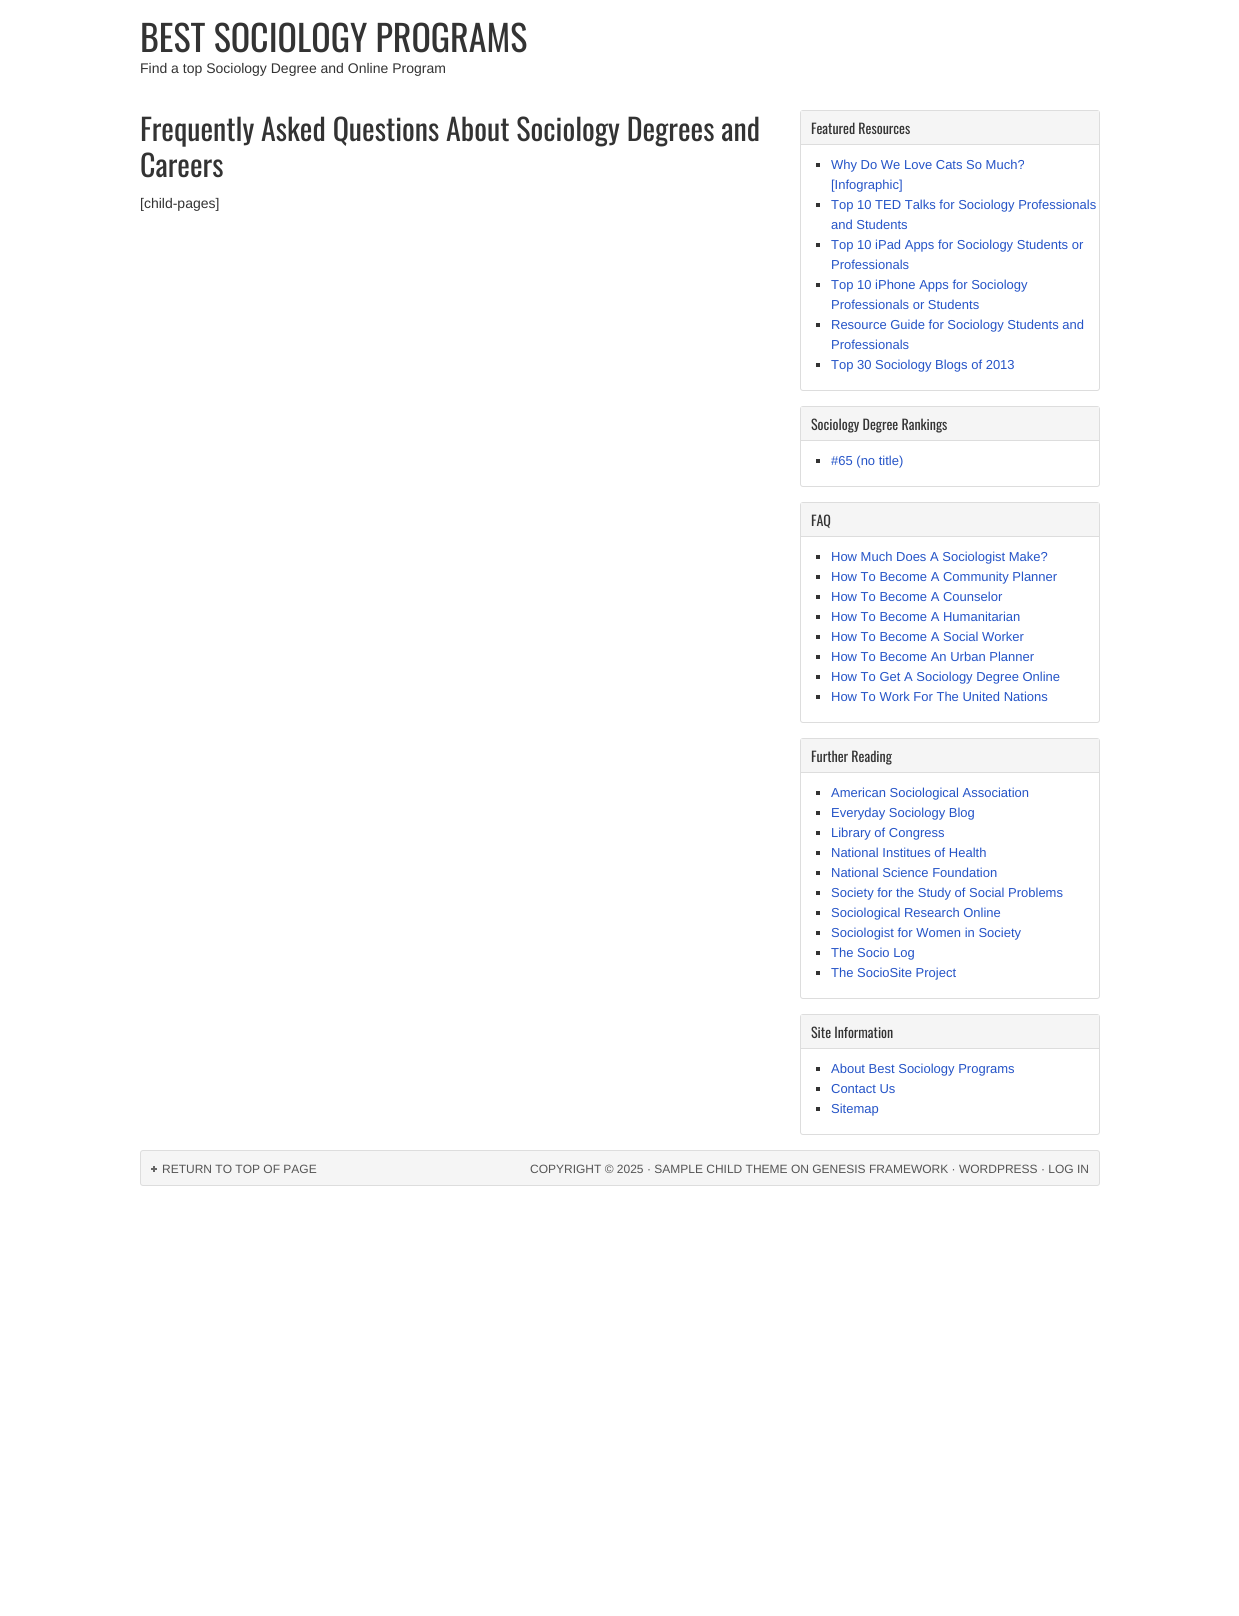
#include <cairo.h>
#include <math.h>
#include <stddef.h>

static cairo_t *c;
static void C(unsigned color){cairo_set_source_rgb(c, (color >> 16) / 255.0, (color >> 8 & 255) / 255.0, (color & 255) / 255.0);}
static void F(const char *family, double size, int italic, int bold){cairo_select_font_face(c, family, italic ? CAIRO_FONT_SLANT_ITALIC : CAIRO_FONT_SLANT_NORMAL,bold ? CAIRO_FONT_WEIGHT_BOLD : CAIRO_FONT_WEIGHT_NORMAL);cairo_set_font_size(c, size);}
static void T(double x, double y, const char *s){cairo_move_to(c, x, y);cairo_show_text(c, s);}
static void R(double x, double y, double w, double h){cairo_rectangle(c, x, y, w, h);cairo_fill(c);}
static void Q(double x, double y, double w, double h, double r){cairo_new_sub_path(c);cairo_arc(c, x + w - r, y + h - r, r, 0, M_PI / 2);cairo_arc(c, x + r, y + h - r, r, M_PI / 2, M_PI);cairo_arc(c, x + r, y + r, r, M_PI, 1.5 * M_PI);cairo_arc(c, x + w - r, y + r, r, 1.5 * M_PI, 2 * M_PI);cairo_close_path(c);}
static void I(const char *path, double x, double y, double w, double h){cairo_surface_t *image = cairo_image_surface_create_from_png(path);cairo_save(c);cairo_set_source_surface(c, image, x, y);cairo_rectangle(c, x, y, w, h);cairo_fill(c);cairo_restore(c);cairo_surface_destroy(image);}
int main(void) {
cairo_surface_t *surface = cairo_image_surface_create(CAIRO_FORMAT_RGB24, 1239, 1616);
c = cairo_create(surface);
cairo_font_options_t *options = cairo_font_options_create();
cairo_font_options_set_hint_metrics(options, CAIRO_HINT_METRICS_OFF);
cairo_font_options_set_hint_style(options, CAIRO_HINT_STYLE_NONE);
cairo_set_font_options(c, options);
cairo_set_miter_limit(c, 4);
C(0xffffff);
cairo_paint(c);
F("Oswald",36,0,0);
C(0x333333);
T(140,52,"BEST SOCIOLOGY PROGRAMS");
F("Liberation Sans",14,0,0);
T(140,73,"Find a top Sociology Degree and Online Program");
F("Oswald",30,0,0);
T(140,141,"Frequently Asked Questions About Sociology Degrees and");
T(140,177,"Careers");
F("Liberation Sans",14,0,0);
T(140,208,"[child-pages]");
Q(800.5,110.5,299,280,2.5);
C(0xdddddd);
cairo_set_line_width(c,1);
cairo_stroke(c);
C(0xf5f5f5);
R(801,111,298,33);
C(0xdddddd);
R(801,144,298,1);
F("Oswald",14,0,0);
C(0x333333);
T(811,134,"Featured Resources");
R(816,163,4,4);
F("Liberation Sans",13,0,0);
C(0x2554c7);
T(831,169,"Why Do We Love Cats So Much?");
T(831,189,"[Infographic]");
C(0x333333);
R(816,203,4,4);
C(0x2554c7);
T(831,209,"Top 10 TED Talks for Sociology Professionals");
T(831,229,"and Students");
C(0x333333);
R(816,243,4,4);
C(0x2554c7);
T(831,249,"Top 10 iPad Apps for Sociology Students or");
T(831,269,"Professionals");
C(0x333333);
R(816,283,4,4);
C(0x2554c7);
T(831,289,"Top 10 iPhone Apps for Sociology");
T(831,309,"Professionals or Students");
C(0x333333);
R(816,323,4,4);
C(0x2554c7);
T(831,329,"Resource Guide for Sociology Students and");
T(831,349,"Professionals");
C(0x333333);
R(816,363,4,4);
C(0x2554c7);
T(831,369,"Top 30 Sociology Blogs of 2013");
Q(800.5,406.5,299,80,2.5);
C(0xdddddd);
cairo_stroke(c);
C(0xf5f5f5);
R(801,407,298,33);
C(0xdddddd);
R(801,440,298,1);
F("Oswald",14,0,0);
C(0x333333);
T(811,430,"Sociology Degree Rankings");
R(816,459,4,4);
F("Liberation Sans",13,0,0);
C(0x2554c7);
T(831,465,"#65 (no title)");
Q(800.5,502.5,299,220,2.5);
C(0xdddddd);
cairo_stroke(c);
C(0xf5f5f5);
R(801,503,298,33);
C(0xdddddd);
R(801,536,298,1);
F("Oswald",14,0,0);
C(0x333333);
T(811,526,"FAQ");
R(816,555,4,4);
F("Liberation Sans",13,0,0);
C(0x2554c7);
T(831,561,"How Much Does A Sociologist Make?");
C(0x333333);
R(816,575,4,4);
C(0x2554c7);
T(831,581,"How To Become A Community Planner");
C(0x333333);
R(816,595,4,4);
C(0x2554c7);
T(831,601,"How To Become A Counselor");
C(0x333333);
R(816,615,4,4);
C(0x2554c7);
T(831,621,"How To Become A Humanitarian");
C(0x333333);
R(816,635,4,4);
C(0x2554c7);
T(831,641,"How To Become A Social Worker");
C(0x333333);
R(816,655,4,4);
C(0x2554c7);
T(831,661,"How To Become An Urban Planner");
C(0x333333);
R(816,675,4,4);
C(0x2554c7);
T(831,681,"How To Get A Sociology Degree Online");
C(0x333333);
R(816,695,4,4);
C(0x2554c7);
T(831,701,"How To Work For The United Nations");
Q(800.5,738.5,299,260,2.5);
C(0xdddddd);
cairo_stroke(c);
C(0xf5f5f5);
R(801,739,298,33);
C(0xdddddd);
R(801,772,298,1);
F("Oswald",14,0,0);
C(0x333333);
T(811,762,"Further Reading");
R(816,791,4,4);
F("Liberation Sans",13,0,0);
C(0x2554c7);
T(831,797,"American Sociological Association");
C(0x333333);
R(816,811,4,4);
C(0x2554c7);
T(831,817,"Everyday Sociology Blog");
C(0x333333);
R(816,831,4,4);
C(0x2554c7);
T(831,837,"Library of Congress");
C(0x333333);
R(816,851,4,4);
C(0x2554c7);
T(831,857,"National Institues of Health");
C(0x333333);
R(816,871,4,4);
C(0x2554c7);
T(831,877,"National Science Foundation");
C(0x333333);
R(816,891,4,4);
C(0x2554c7);
T(831,897,"Society for the Study of Social Problems");
C(0x333333);
R(816,911,4,4);
C(0x2554c7);
T(831,917,"Sociological Research Online");
C(0x333333);
R(816,931,4,4);
C(0x2554c7);
T(831,937,"Sociologist for Women in Society");
C(0x333333);
R(816,951,4,4);
C(0x2554c7);
T(831,957,"The Socio Log");
C(0x333333);
R(816,971,4,4);
C(0x2554c7);
T(831,977,"The SocioSite Project");
Q(800.5,1014.5,299,120,2.5);
C(0xdddddd);
cairo_stroke(c);
C(0xf5f5f5);
R(801,1015,298,33);
C(0xdddddd);
R(801,1048,298,1);
F("Oswald",14,0,0);
C(0x333333);
T(811,1038,"Site Information");
R(816,1067,4,4);
F("Liberation Sans",13,0,0);
C(0x2554c7);
T(831,1073,"About Best Sociology Programs");
C(0x333333);
R(816,1087,4,4);
C(0x2554c7);
T(831,1093,"Contact Us");
C(0x333333);
R(816,1107,4,4);
C(0x2554c7);
T(831,1113,"Sitemap");
C(0xf5f5f5);
Q(140.5,1150.5,959,35,2.5);
cairo_fill_preserve(c);
C(0xdddddd);
cairo_stroke(c);
I("1.png",151,1166,6,6);
F("Liberation Sans",12,0,0);
C(0x555555);
T(162,1173,"RETURN TO TOP OF PAGE");
T(530,1173,"COPYRIGHT © 2025 · SAMPLE CHILD THEME ON GENESIS FRAMEWORK · WORDPRESS · LOG IN");
cairo_surface_write_to_png(surface, "o.png");
cairo_font_options_destroy(options);
cairo_destroy(c);
cairo_surface_destroy(surface);
return 0;
}
